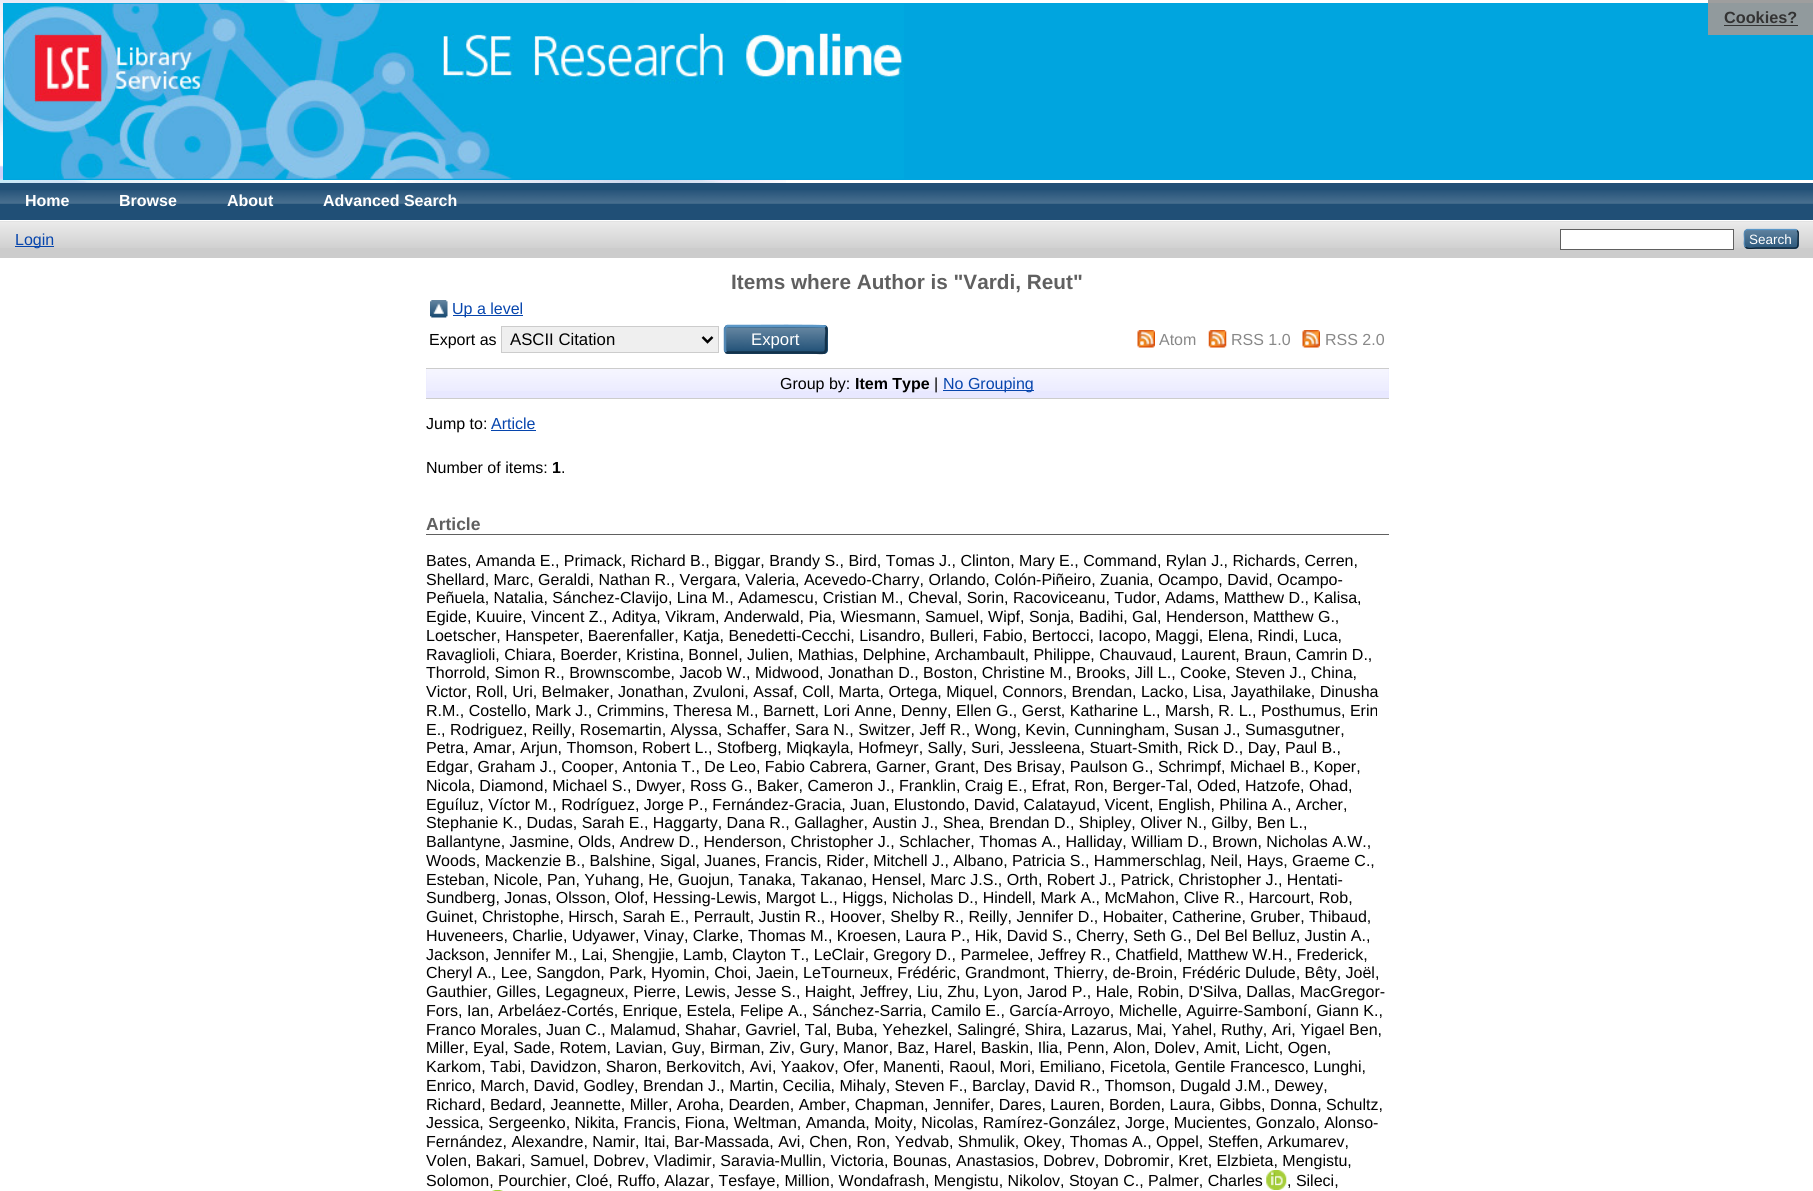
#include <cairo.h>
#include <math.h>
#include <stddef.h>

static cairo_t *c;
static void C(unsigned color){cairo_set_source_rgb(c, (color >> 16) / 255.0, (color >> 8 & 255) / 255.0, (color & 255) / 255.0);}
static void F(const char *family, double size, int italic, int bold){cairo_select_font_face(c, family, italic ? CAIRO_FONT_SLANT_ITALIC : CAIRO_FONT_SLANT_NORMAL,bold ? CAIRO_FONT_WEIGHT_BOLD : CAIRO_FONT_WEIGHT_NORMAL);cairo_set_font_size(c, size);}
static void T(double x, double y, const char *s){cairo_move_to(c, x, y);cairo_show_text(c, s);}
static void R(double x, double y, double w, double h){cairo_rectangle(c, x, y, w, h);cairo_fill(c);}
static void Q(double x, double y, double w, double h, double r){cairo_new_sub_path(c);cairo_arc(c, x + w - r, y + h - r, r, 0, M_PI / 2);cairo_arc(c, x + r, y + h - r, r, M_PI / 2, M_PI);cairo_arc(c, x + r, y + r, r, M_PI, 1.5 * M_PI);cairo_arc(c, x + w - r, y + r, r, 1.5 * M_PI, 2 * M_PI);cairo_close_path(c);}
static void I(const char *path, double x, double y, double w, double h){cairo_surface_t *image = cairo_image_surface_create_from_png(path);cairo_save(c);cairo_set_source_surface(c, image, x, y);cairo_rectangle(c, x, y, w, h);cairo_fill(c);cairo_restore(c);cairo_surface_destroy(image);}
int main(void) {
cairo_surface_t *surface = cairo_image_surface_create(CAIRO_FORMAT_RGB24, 1813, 1191);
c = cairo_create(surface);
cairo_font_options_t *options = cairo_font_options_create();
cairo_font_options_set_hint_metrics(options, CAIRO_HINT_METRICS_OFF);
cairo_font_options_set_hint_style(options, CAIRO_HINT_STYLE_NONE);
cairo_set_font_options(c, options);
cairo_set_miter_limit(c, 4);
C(0xffffff);
cairo_paint(c);
C(0x9e9e9e);
R(1708,0,105,3);
I("1.png",0,0,786,183);
C(0x00a5df);
R(3,3,1810,177);
C(0x919a9d);
R(1708,3,105,32);
I("2.png",3,3,901,176);
F("Liberation Sans",16.25,0,1);
C(0x333333);
T(1724,23,"Cookies?");
R(1724,25,74,1);
C(0x204f76);
R(0,183,1813,37);
I("3.png",0,190,1813,14);
F("Liberation Sans",16,0,1);
C(0xffffff);
T(25,206,"Home");
T(119,206,"Browse");
T(227,206,"About");
T(323,206,"Advanced Search");
C(0xcccccc);
R(0,221,1813,37);
I("4.png",0,221,1813,27);
C(0x0645ad);
R(15,246,39,1);
F("Liberation Sans",16,0,0);
T(15,245,"Login");
C(0xffffff);
cairo_rectangle(c,1560.5,229.5,173,20);
cairo_fill_preserve(c);
C(0x606060);
cairo_set_line_width(c,1);
cairo_stroke(c);
C(0x1f4f76);
Q(1744,229,55,20,4);
cairo_fill(c);
I("5.png",1744,229,55,20);
cairo_new_path(c);
cairo_move_to(c,1745.5,230.5);
cairo_line_to(c,1747,229.5);
cairo_line_to(c,1795.5,229.5);
cairo_line_to(c,1797,230.5);
C(0x5b97c7);
cairo_set_line_width(c,1.2);
cairo_stroke(c);
cairo_new_path(c);
cairo_move_to(c,1797,230.5);
cairo_curve_to(c,1799,232.5,1798,236.5,1798,239);
cairo_curve_to(c,1798,249.5,1798.5,248,1787,248);
cairo_line_to(c,1755.5,248);
cairo_curve_to(c,1755,248,1747.5,249.5,1745.5,247);
C(0x0d2131);
cairo_stroke(c);
cairo_new_path(c);
cairo_move_to(c,1745.5,247);
cairo_curve_to(c,1743.5,245.5,1744.5,241,1744.5,239);
cairo_curve_to(c,1744.5,236.5,1743.5,232,1745.5,230.5);
C(0x5287b3);
cairo_stroke(c);
F("Liberation Sans",13.5,0,0);
C(0xffffff);
T(1749,244,"Search");
F("Liberation Sans",20.75,0,1);
C(0x606060);
T(731,289,"Items where Author is \"Vardi, Reut\"");
I("6.png",430,300,18,18);
C(0x0645ad);
R(453,315,70,1);
F("Liberation Sans",16,0,0);
T(452,314,"Up a level");
C(0x000000);
T(429,345,"Export as");
C(0xefefef);
cairo_rectangle(c,501.5,326.5,217,26);
cairo_fill_preserve(c);
C(0xcccccc);
cairo_set_line_width(c,1);
cairo_stroke(c);
cairo_new_path(c);
cairo_move_to(c,702.5,337);
cairo_line_to(c,707.5,342);
cairo_line_to(c,712.5,337);
C(0x000000);
cairo_set_line_width(c,2.5);
cairo_stroke(c);
F("Liberation Sans",16.75,0,0);
T(510,345,"ASCII Citation");
C(0x1f4f76);
Q(724,325,104,29,4);
cairo_fill(c);
I("7.png",724,327,104,24);
cairo_new_path(c);
cairo_move_to(c,725.5,327);
cairo_line_to(c,727.5,326);
cairo_line_to(c,743.5,326);
cairo_curve_to(c,752,326,823,325.5,825,326.5);
cairo_line_to(c,825.5,327);
C(0x5b97c7);
cairo_stroke(c);
cairo_new_path(c);
cairo_move_to(c,825.5,327);
cairo_curve_to(c,827.5,329,826,337,826,339.5);
cairo_curve_to(c,826,356.5,828,352.5,807.5,352.5);
cairo_line_to(c,727.5,352.5);
cairo_line_to(c,725.5,352);
C(0x13324a);
cairo_stroke(c);
cairo_new_path(c);
cairo_move_to(c,725.5,352);
cairo_curve_to(c,725.5,351.5,725,350.5,725,350);
cairo_line_to(c,725,329);
cairo_curve_to(c,725,328,725.5,327.5,725.5,327);
C(0x5287b3);
cairo_stroke(c);
C(0xffffff);
T(751,345,"Export");
I("8.png",1137,330,18,18);
F("Liberation Sans",16,0,0);
C(0x888888);
T(1159,345,"Atom");
I("9.png",1208,330,19,18);
T(1231,345,"RSS 1.0");
I("10.png",1302,330,18,18);
T(1325,345,"RSS 2.0");
C(0xe8e8ff);
R(426,369,963,29);
I("11.png",426,369,963,22);
C(0xcccccc);
R(426,368,963,1);
R(426,398,963,1);
C(0x000000);
T(780,389,"Group by:");
F("Liberation Sans",16,0,1);
T(855,389,"Item Type");
F("Liberation Sans",16,0,0);
T(934,389,"|");
C(0x0645ad);
R(943,390,91,1);
T(943,389,"No Grouping");
C(0x000000);
T(426,429,"Jump to:");
C(0x0645ad);
T(491,429,"Article");
R(491,430,45,1);
C(0x000000);
T(426,473,"Number of items:");
F("Liberation Sans",16,0,1);
T(552,473,"1");
F("Liberation Sans",16,0,0);
T(561,473,".");
C(0x606060);
R(426,534,963,1);
F("Liberation Sans",17.5,0,1);
T(426,530,"Article");
F("Liberation Sans",16,0,0);
C(0x000000);
T(426,566,"Bates, Amanda E., Primack, Richard B., Biggar, Brandy S., Bird, Tomas J., Clinton, Mary E., Command, Rylan J., Richards, Cerren,");
T(426,585,"Shellard, Marc, Geraldi, Nathan R., Vergara, Valeria, Acevedo-Charry, Orlando, Colón-Piñeiro, Zuania, Ocampo, David, Ocampo-");
T(426,603,"Peñuela, Natalia, Sánchez-Clavijo, Lina M., Adamescu, Cristian M., Cheval, Sorin, Racoviceanu, Tudor, Adams, Matthew D., Kalisa,");
T(426,622,"Egide, Kuuire, Vincent Z., Aditya, Vikram, Anderwald, Pia, Wiesmann, Samuel, Wipf, Sonja, Badihi, Gal, Henderson, Matthew G.,");
T(426,641,"Loetscher, Hanspeter, Baerenfaller, Katja, Benedetti-Cecchi, Lisandro, Bulleri, Fabio, Bertocci, Iacopo, Maggi, Elena, Rindi, Luca,");
T(426,660,"Ravaglioli, Chiara, Boerder, Kristina, Bonnel, Julien, Mathias, Delphine, Archambault, Philippe, Chauvaud, Laurent, Braun, Camrin D.,");
T(426,678,"Thorrold, Simon R., Brownscombe, Jacob W., Midwood, Jonathan D., Boston, Christine M., Brooks, Jill L., Cooke, Steven J., China,");
T(426,697,"Victor, Roll, Uri, Belmaker, Jonathan, Zvuloni, Assaf, Coll, Marta, Ortega, Miquel, Connors, Brendan, Lacko, Lisa, Jayathilake, Dinusha");
T(426,716,"R.M., Costello, Mark J., Crimmins, Theresa M., Barnett, Lori Anne, Denny, Ellen G., Gerst, Katharine L., Marsh, R. L., Posthumus, Erin");
T(426,735,"E., Rodriguez, Reilly, Rosemartin, Alyssa, Schaffer, Sara N., Switzer, Jeff R., Wong, Kevin, Cunningham, Susan J., Sumasgutner,");
T(426,753,"Petra, Amar, Arjun, Thomson, Robert L., Stofberg, Miqkayla, Hofmeyr, Sally, Suri, Jessleena, Stuart-Smith, Rick D., Day, Paul B.,");
T(426,772,"Edgar, Graham J., Cooper, Antonia T., De Leo, Fabio Cabrera, Garner, Grant, Des Brisay, Paulson G., Schrimpf, Michael B., Koper,");
T(426,791,"Nicola, Diamond, Michael S., Dwyer, Ross G., Baker, Cameron J., Franklin, Craig E., Efrat, Ron, Berger-Tal, Oded, Hatzofe, Ohad,");
T(426,810,"Eguíluz, Víctor M., Rodríguez, Jorge P., Fernández-Gracia, Juan, Elustondo, David, Calatayud, Vicent, English, Philina A., Archer,");
T(426,828,"Stephanie K., Dudas, Sarah E., Haggarty, Dana R., Gallagher, Austin J., Shea, Brendan D., Shipley, Oliver N., Gilby, Ben L.,");
T(426,847,"Ballantyne, Jasmine, Olds, Andrew D., Henderson, Christopher J., Schlacher, Thomas A., Halliday, William D., Brown, Nicholas A.W.,");
T(426,866,"Woods, Mackenzie B., Balshine, Sigal, Juanes, Francis, Rider, Mitchell J., Albano, Patricia S., Hammerschlag, Neil, Hays, Graeme C.,");
T(426,885,"Esteban, Nicole, Pan, Yuhang, He, Guojun, Tanaka, Takanao, Hensel, Marc J.S., Orth, Robert J., Patrick, Christopher J., Hentati-");
T(426,903,"Sundberg, Jonas, Olsson, Olof, Hessing-Lewis, Margot L., Higgs, Nicholas D., Hindell, Mark A., McMahon, Clive R., Harcourt, Rob,");
T(426,922,"Guinet, Christophe, Hirsch, Sarah E., Perrault, Justin R., Hoover, Shelby R., Reilly, Jennifer D., Hobaiter, Catherine, Gruber, Thibaud,");
T(426,941,"Huveneers, Charlie, Udyawer, Vinay, Clarke, Thomas M., Kroesen, Laura P., Hik, David S., Cherry, Seth G., Del Bel Belluz, Justin A.,");
T(426,960,"Jackson, Jennifer M., Lai, Shengjie, Lamb, Clayton T., LeClair, Gregory D., Parmelee, Jeffrey R., Chatfield, Matthew W.H., Frederick,");
T(426,978,"Cheryl A., Lee, Sangdon, Park, Hyomin, Choi, Jaein, LeTourneux, Frédéric, Grandmont, Thierry, de-Broin, Frédéric Dulude, Bêty, Joël,");
T(426,997,"Gauthier, Gilles, Legagneux, Pierre, Lewis, Jesse S., Haight, Jeffrey, Liu, Zhu, Lyon, Jarod P., Hale, Robin, D'Silva, Dallas, MacGregor-");
T(426,1016,"Fors, Ian, Arbeláez-Cortés, Enrique, Estela, Felipe A., Sánchez-Sarria, Camilo E., García-Arroyo, Michelle, Aguirre-Samboní, Giann K.,");
T(426,1035,"Franco Morales, Juan C., Malamud, Shahar, Gavriel, Tal, Buba, Yehezkel, Salingré, Shira, Lazarus, Mai, Yahel, Ruthy, Ari, Yigael Ben,");
T(426,1053,"Miller, Eyal, Sade, Rotem, Lavian, Guy, Birman, Ziv, Gury, Manor, Baz, Harel, Baskin, Ilia, Penn, Alon, Dolev, Amit, Licht, Ogen,");
T(426,1072,"Karkom, Tabi, Davidzon, Sharon, Berkovitch, Avi, Yaakov, Ofer, Manenti, Raoul, Mori, Emiliano, Ficetola, Gentile Francesco, Lunghi,");
T(426,1091,"Enrico, March, David, Godley, Brendan J., Martin, Cecilia, Mihaly, Steven F., Barclay, David R., Thomson, Dugald J.M., Dewey,");
T(426,1110,"Richard, Bedard, Jeannette, Miller, Aroha, Dearden, Amber, Chapman, Jennifer, Dares, Lauren, Borden, Laura, Gibbs, Donna, Schultz,");
T(426,1128,"Jessica, Sergeenko, Nikita, Francis, Fiona, Weltman, Amanda, Moity, Nicolas, Ramírez-González, Jorge, Mucientes, Gonzalo, Alonso-");
T(426,1147,"Fernández, Alexandre, Namir, Itai, Bar-Massada, Avi, Chen, Ron, Yedvab, Shmulik, Okey, Thomas A., Oppel, Steffen, Arkumarev,");
T(426,1166,"Volen, Bakari, Samuel, Dobrev, Vladimir, Saravia-Mullin, Victoria, Bounas, Anastasios, Dobrev, Dobromir, Kret, Elzbieta, Mengistu,");
T(426,1186,"Solomon, Pourchier, Cloé, Ruffo, Alazar, Tesfaye, Million, Wondafrash, Mengistu, Nikolov, Stoyan C., Palmer, Charles");
I("12.png",1266,1170,21,20);
T(1287,1186,", Sileci,");
I("13.png",492,1190,11,1);
cairo_surface_write_to_png(surface, "o.png");
cairo_font_options_destroy(options);
cairo_destroy(c);
cairo_surface_destroy(surface);
return 0;
}
